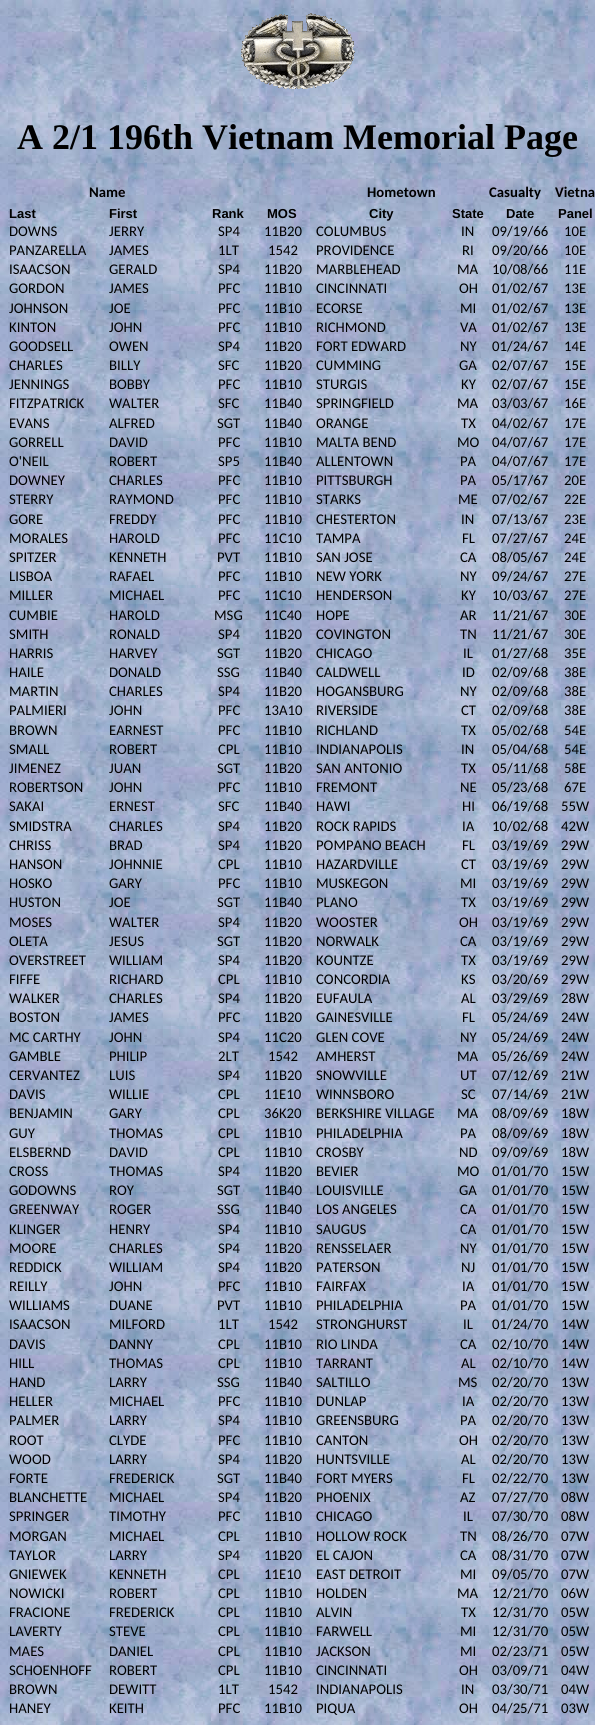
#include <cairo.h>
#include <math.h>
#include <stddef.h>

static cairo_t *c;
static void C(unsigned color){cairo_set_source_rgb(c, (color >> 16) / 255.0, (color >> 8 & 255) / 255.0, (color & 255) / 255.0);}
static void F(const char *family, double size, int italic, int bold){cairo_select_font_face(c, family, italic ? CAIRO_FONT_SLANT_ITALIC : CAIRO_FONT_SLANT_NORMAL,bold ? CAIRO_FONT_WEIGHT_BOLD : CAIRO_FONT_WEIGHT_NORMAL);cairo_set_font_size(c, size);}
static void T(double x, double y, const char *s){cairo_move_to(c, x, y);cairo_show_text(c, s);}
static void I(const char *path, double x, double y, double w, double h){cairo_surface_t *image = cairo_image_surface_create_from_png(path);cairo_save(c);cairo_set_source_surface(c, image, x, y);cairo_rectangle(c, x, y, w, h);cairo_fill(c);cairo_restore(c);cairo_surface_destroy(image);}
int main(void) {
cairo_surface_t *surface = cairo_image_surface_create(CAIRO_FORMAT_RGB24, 595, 1725);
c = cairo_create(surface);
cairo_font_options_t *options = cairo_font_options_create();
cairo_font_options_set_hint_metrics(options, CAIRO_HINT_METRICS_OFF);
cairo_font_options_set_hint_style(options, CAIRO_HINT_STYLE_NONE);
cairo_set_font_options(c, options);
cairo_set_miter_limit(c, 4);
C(0xffffff);
cairo_paint(c);
I("1.png",0,0,595,1725);
I("2.png",241,13,114,76);
F("Liberation Serif",36,0,1);
C(0x000000);
T(17,149,"A 2/1 196th Vietnam Memorial Page");
F("Carlito",14.75,0,1);
T(89,197,"Name");
T(367,197,"Hometown");
T(489,197,"Casualty");
T(555,197,"Vietna");
F("Liberation Sans",13,0,1);
T(9,218,"Last");
T(109,218,"First");
T(212,218,"Rank");
T(267,218,"MOS");
T(369,218,"City");
T(452,218,"State");
T(506,218,"Date");
T(558,218,"Panel");
F("Carlito",14.75,0,0);
T(9,236,"DOWNS");
T(109,236,"JERRY");
T(218,236,"SP4");
T(264,236,"11B20");
T(316,236,"COLUMBUS");
T(461,236,"IN");
T(492,236,"09/19/66");
T(564,236,"10E");
T(9,255,"PANZARELLA");
T(109,255,"JAMES");
T(218,255,"1LT");
T(268,255,"1542");
T(316,255,"PROVIDENCE");
T(462,255,"RI");
T(492,255,"09/20/66");
T(564,255,"10E");
T(9,274,"ISAACSON");
T(109,274,"GERALD");
T(218,274,"SP4");
T(264,274,"11B20");
T(316,274,"MARBLEHEAD");
T(457,274,"MA");
T(492,274,"10/08/66");
T(564,274,"11E");
T(9,293,"GORDON");
T(109,293,"JAMES");
T(218,293,"PFC");
T(264,293,"11B10");
T(316,293,"CINCINNATI");
T(459,293,"OH");
T(492,293,"01/02/67");
T(564,293,"13E");
T(9,313,"JOHNSON");
T(109,313,"JOE");
T(218,313,"PFC");
T(264,313,"11B10");
T(316,313,"ECORSE");
T(460,313,"MI");
T(492,313,"01/02/67");
T(564,313,"13E");
T(9,332,"KINTON");
T(109,332,"JOHN");
T(218,332,"PFC");
T(264,332,"11B10");
T(316,332,"RICHMOND");
T(460,332,"VA");
T(492,332,"01/02/67");
T(564,332,"13E");
T(9,351,"GOODSELL");
T(109,351,"OWEN");
T(218,351,"SP4");
T(264,351,"11B20");
T(316,351,"FORT EDWARD");
T(460,351,"NY");
T(492,351,"01/24/67");
T(564,351,"14E");
T(9,370,"CHARLES");
T(109,370,"BILLY");
T(218,370,"SFC");
T(264,370,"11B20");
T(316,370,"CUMMING");
T(459,370,"GA");
T(492,370,"02/07/67");
T(564,370,"15E");
T(9,389,"JENNINGS");
T(109,389,"BOBBY");
T(218,389,"PFC");
T(264,389,"11B10");
T(316,389,"STURGIS");
T(461,389,"KY");
T(492,389,"02/07/67");
T(564,389,"15E");
T(9,408,"FITZPATRICK");
T(109,408,"WALTER");
T(218,408,"SFC");
T(264,408,"11B40");
T(316,408,"SPRINGFIELD");
T(457,408,"MA");
T(492,408,"03/03/67");
T(564,408,"16E");
T(9,428,"EVANS");
T(109,428,"ALFRED");
T(217,428,"SGT");
T(264,428,"11B40");
T(316,428,"ORANGE");
T(461,428,"TX");
T(492,428,"04/02/67");
T(564,428,"17E");
T(9,447,"GORRELL");
T(109,447,"DAVID");
T(218,447,"PFC");
T(264,447,"11B10");
T(316,447,"MALTA BEND");
T(457,447,"MO");
T(492,447,"04/07/67");
T(564,447,"17E");
T(9,466,"O'NEIL");
T(109,466,"ROBERT");
T(218,466,"SP5");
T(264,466,"11B40");
T(316,466,"ALLENTOWN");
T(460,466,"PA");
T(492,466,"04/07/67");
T(564,466,"17E");
T(9,485,"DOWNEY");
T(109,485,"CHARLES");
T(218,485,"PFC");
T(264,485,"11B10");
T(316,485,"PITTSBURGH");
T(460,485,"PA");
T(492,485,"05/17/67");
T(564,485,"20E");
T(9,504,"STERRY");
T(109,504,"RAYMOND");
T(218,504,"PFC");
T(264,504,"11B10");
T(316,504,"STARKS");
T(458,504,"ME");
T(492,504,"07/02/67");
T(564,504,"22E");
T(9,524,"GORE");
T(109,524,"FREDDY");
T(218,524,"PFC");
T(264,524,"11B10");
T(316,524,"CHESTERTON");
T(461,524,"IN");
T(492,524,"07/13/67");
T(564,524,"23E");
T(9,543,"MORALES");
T(109,543,"HAROLD");
T(218,543,"PFC");
T(264,543,"11C10");
T(316,543,"TAMPA");
T(462,543,"FL");
T(492,543,"07/27/67");
T(564,543,"24E");
T(9,562,"SPITZER");
T(109,562,"KENNETH");
T(217,562,"PVT");
T(264,562,"11B10");
T(316,562,"SAN JOSE");
T(460,562,"CA");
T(492,562,"08/05/67");
T(564,562,"24E");
T(9,581,"LISBOA");
T(109,581,"RAFAEL");
T(218,581,"PFC");
T(264,581,"11B10");
T(316,581,"NEW YORK");
T(460,581,"NY");
T(492,581,"09/24/67");
T(564,581,"27E");
T(9,600,"MILLER");
T(109,600,"MICHAEL");
T(218,600,"PFC");
T(264,600,"11C10");
T(316,600,"HENDERSON");
T(461,600,"KY");
T(492,600,"10/03/67");
T(564,600,"27E");
T(9,620,"CUMBIE");
T(109,620,"HAROLD");
T(214,620,"MSG");
T(264,620,"11C40");
T(316,620,"HOPE");
T(460,620,"AR");
T(492,620,"11/21/67");
T(564,620,"30E");
T(9,639,"SMITH");
T(109,639,"RONALD");
T(218,639,"SP4");
T(264,639,"11B20");
T(316,639,"COVINGTON");
T(460,639,"TN");
T(492,639,"11/21/67");
T(564,639,"30E");
T(9,658,"HARRIS");
T(109,658,"HARVEY");
T(217,658,"SGT");
T(264,658,"11B20");
T(316,658,"CHICAGO");
T(463,658,"IL");
T(492,658,"01/27/68");
T(564,658,"35E");
T(9,677,"HAILE");
T(109,677,"DONALD");
T(217,677,"SSG");
T(264,677,"11B40");
T(316,677,"CALDWELL");
T(462,677,"ID");
T(492,677,"02/09/68");
T(564,677,"38E");
T(9,696,"MARTIN");
T(109,696,"CHARLES");
T(218,696,"SP4");
T(264,696,"11B20");
T(316,696,"HOGANSBURG");
T(460,696,"NY");
T(492,696,"02/09/68");
T(564,696,"38E");
T(9,715,"PALMIERI");
T(109,715,"JOHN");
T(218,715,"PFC");
T(264,715,"13A10");
T(316,715,"RIVERSIDE");
T(461,715,"CT");
T(492,715,"02/09/68");
T(564,715,"38E");
T(9,735,"BROWN");
T(109,735,"EARNEST");
T(218,735,"PFC");
T(264,735,"11B10");
T(316,735,"RICHLAND");
T(461,735,"TX");
T(492,735,"05/02/68");
T(564,735,"54E");
T(9,754,"SMALL");
T(109,754,"ROBERT");
T(218,754,"CPL");
T(264,754,"11B10");
T(316,754,"INDIANAPOLIS");
T(461,754,"IN");
T(492,754,"05/04/68");
T(564,754,"54E");
T(9,773,"JIMENEZ");
T(109,773,"JUAN");
T(217,773,"SGT");
T(264,773,"11B20");
T(316,773,"SAN ANTONIO");
T(461,773,"TX");
T(492,773,"05/11/68");
T(564,773,"58E");
T(9,792,"ROBERTSON");
T(109,792,"JOHN");
T(218,792,"PFC");
T(264,792,"11B10");
T(316,792,"FREMONT");
T(460,792,"NE");
T(492,792,"05/23/68");
T(564,792,"67E");
T(9,811,"SAKAI");
T(109,811,"ERNEST");
T(218,811,"SFC");
T(264,811,"11B40");
T(316,811,"HAWI");
T(462,811,"HI");
T(492,811,"06/19/68");
T(561,811,"55W");
T(9,831,"SMIDSTRA");
T(109,831,"CHARLES");
T(218,831,"SP4");
T(264,831,"11B20");
T(316,831,"ROCK RAPIDS");
T(462,831,"IA");
T(492,831,"10/02/68");
T(561,831,"42W");
T(9,850,"CHRISS");
T(109,850,"BRAD");
T(218,850,"SP4");
T(264,850,"11B20");
T(316,850,"POMPANO BEACH");
T(462,850,"FL");
T(492,850,"03/19/69");
T(561,850,"29W");
T(9,869,"HANSON");
T(109,869,"JOHNNIE");
T(218,869,"CPL");
T(264,869,"11B10");
T(316,869,"HAZARDVILLE");
T(461,869,"CT");
T(492,869,"03/19/69");
T(561,869,"29W");
T(9,888,"HOSKO");
T(109,888,"GARY");
T(218,888,"PFC");
T(264,888,"11B10");
T(316,888,"MUSKEGON");
T(460,888,"MI");
T(492,888,"03/19/69");
T(561,888,"29W");
T(9,907,"HUSTON");
T(109,907,"JOE");
T(217,907,"SGT");
T(264,907,"11B40");
T(316,907,"PLANO");
T(461,907,"TX");
T(492,907,"03/19/69");
T(561,907,"29W");
T(9,927,"MOSES");
T(109,927,"WALTER");
T(218,927,"SP4");
T(264,927,"11B20");
T(316,927,"WOOSTER");
T(459,927,"OH");
T(492,927,"03/19/69");
T(561,927,"29W");
T(9,946,"OLETA");
T(109,946,"JESUS");
T(217,946,"SGT");
T(264,946,"11B20");
T(316,946,"NORWALK");
T(460,946,"CA");
T(492,946,"03/19/69");
T(561,946,"29W");
T(9,965,"OVERSTREET");
T(109,965,"WILLIAM");
T(218,965,"SP4");
T(264,965,"11B20");
T(316,965,"KOUNTZE");
T(461,965,"TX");
T(492,965,"03/19/69");
T(561,965,"29W");
T(9,984,"FIFFE");
T(109,984,"RICHARD");
T(218,984,"CPL");
T(264,984,"11B10");
T(316,984,"CONCORDIA");
T(461,984,"KS");
T(492,984,"03/20/69");
T(561,984,"29W");
T(9,1003,"WALKER");
T(109,1003,"CHARLES");
T(218,1003,"SP4");
T(264,1003,"11B20");
T(316,1003,"EUFAULA");
T(461,1003,"AL");
T(492,1003,"03/29/69");
T(561,1003,"28W");
T(9,1022,"BOSTON");
T(109,1022,"JAMES");
T(218,1022,"PFC");
T(264,1022,"11B20");
T(316,1022,"GAINESVILLE");
T(462,1022,"FL");
T(492,1022,"05/24/69");
T(561,1022,"24W");
T(9,1042,"MC CARTHY");
T(109,1042,"JOHN");
T(218,1042,"SP4");
T(264,1042,"11C20");
T(316,1042,"GLEN COVE");
T(460,1042,"NY");
T(492,1042,"05/24/69");
T(561,1042,"24W");
T(9,1061,"GAMBLE");
T(109,1061,"PHILIP");
T(218,1061,"2LT");
T(268,1061,"1542");
T(316,1061,"AMHERST");
T(457,1061,"MA");
T(492,1061,"05/26/69");
T(561,1061,"24W");
T(9,1080,"CERVANTEZ");
T(109,1080,"LUIS");
T(218,1080,"SP4");
T(264,1080,"11B20");
T(316,1080,"SNOWVILLE");
T(460,1080,"UT");
T(492,1080,"07/12/69");
T(561,1080,"21W");
T(9,1099,"DAVIS");
T(109,1099,"WILLIE");
T(218,1099,"CPL");
T(264,1099,"11E10");
T(316,1099,"WINNSBORO");
T(461,1099,"SC");
T(492,1099,"07/14/69");
T(561,1099,"21W");
T(9,1118,"BENJAMIN");
T(109,1118,"GARY");
T(218,1118,"CPL");
T(264,1118,"36K20");
T(316,1118,"BERKSHIRE VILLAGE");
T(457,1118,"MA");
T(492,1118,"08/09/69");
T(561,1118,"18W");
T(9,1138,"GUY");
T(109,1138,"THOMAS");
T(218,1138,"CPL");
T(264,1138,"11B10");
T(316,1138,"PHILADELPHIA");
T(460,1138,"PA");
T(492,1138,"08/09/69");
T(561,1138,"18W");
T(9,1157,"ELSBERND");
T(109,1157,"DAVID");
T(218,1157,"CPL");
T(264,1157,"11B10");
T(316,1157,"CROSBY");
T(459,1157,"ND");
T(492,1157,"09/09/69");
T(561,1157,"18W");
T(9,1176,"CROSS");
T(109,1176,"THOMAS");
T(218,1176,"SP4");
T(264,1176,"11B20");
T(316,1176,"BEVIER");
T(457,1176,"MO");
T(492,1176,"01/01/70");
T(561,1176,"15W");
T(9,1195,"GODOWNS");
T(109,1195,"ROY");
T(217,1195,"SGT");
T(264,1195,"11B40");
T(316,1195,"LOUISVILLE");
T(459,1195,"GA");
T(492,1195,"01/01/70");
T(561,1195,"15W");
T(9,1214,"GREENWAY");
T(109,1214,"ROGER");
T(217,1214,"SSG");
T(264,1214,"11B40");
T(316,1214,"LOS ANGELES");
T(460,1214,"CA");
T(492,1214,"01/01/70");
T(561,1214,"15W");
T(9,1234,"KLINGER");
T(109,1234,"HENRY");
T(218,1234,"SP4");
T(264,1234,"11B10");
T(316,1234,"SAUGUS");
T(460,1234,"CA");
T(492,1234,"01/01/70");
T(561,1234,"15W");
T(9,1253,"MOORE");
T(109,1253,"CHARLES");
T(218,1253,"SP4");
T(264,1253,"11B20");
T(316,1253,"RENSSELAER");
T(460,1253,"NY");
T(492,1253,"01/01/70");
T(561,1253,"15W");
T(9,1272,"REDDICK");
T(109,1272,"WILLIAM");
T(218,1272,"SP4");
T(264,1272,"11B20");
T(316,1272,"PATERSON");
T(461,1272,"NJ");
T(492,1272,"01/01/70");
T(561,1272,"15W");
T(9,1291,"REILLY");
T(109,1291,"JOHN");
T(218,1291,"PFC");
T(264,1291,"11B10");
T(316,1291,"FAIRFAX");
T(462,1291,"IA");
T(492,1291,"01/01/70");
T(561,1291,"15W");
T(9,1310,"WILLIAMS");
T(109,1310,"DUANE");
T(217,1310,"PVT");
T(264,1310,"11B10");
T(316,1310,"PHILADELPHIA");
T(460,1310,"PA");
T(492,1310,"01/01/70");
T(561,1310,"15W");
T(9,1329,"ISAACSON");
T(109,1329,"MILFORD");
T(218,1329,"1LT");
T(268,1329,"1542");
T(316,1329,"STRONGHURST");
T(463,1329,"IL");
T(492,1329,"01/24/70");
T(561,1329,"14W");
T(9,1349,"DAVIS");
T(109,1349,"DANNY");
T(218,1349,"CPL");
T(264,1349,"11B10");
T(316,1349,"RIO LINDA");
T(460,1349,"CA");
T(492,1349,"02/10/70");
T(561,1349,"14W");
T(9,1368,"HILL");
T(109,1368,"THOMAS");
T(218,1368,"CPL");
T(264,1368,"11B10");
T(316,1368,"TARRANT");
T(461,1368,"AL");
T(492,1368,"02/10/70");
T(561,1368,"14W");
T(9,1387,"HAND");
T(109,1387,"LARRY");
T(217,1387,"SSG");
T(264,1387,"11B40");
T(316,1387,"SALTILLO");
T(458,1387,"MS");
T(492,1387,"02/20/70");
T(561,1387,"13W");
T(9,1406,"HELLER");
T(109,1406,"MICHAEL");
T(218,1406,"PFC");
T(264,1406,"11B10");
T(316,1406,"DUNLAP");
T(462,1406,"IA");
T(492,1406,"02/20/70");
T(561,1406,"13W");
T(9,1425,"PALMER");
T(109,1425,"LARRY");
T(218,1425,"SP4");
T(264,1425,"11B10");
T(316,1425,"GREENSBURG");
T(460,1425,"PA");
T(492,1425,"02/20/70");
T(561,1425,"13W");
T(9,1445,"ROOT");
T(109,1445,"CLYDE");
T(218,1445,"PFC");
T(264,1445,"11B10");
T(316,1445,"CANTON");
T(459,1445,"OH");
T(492,1445,"02/20/70");
T(561,1445,"13W");
T(9,1464,"WOOD");
T(109,1464,"LARRY");
T(218,1464,"SP4");
T(264,1464,"11B20");
T(316,1464,"HUNTSVILLE");
T(461,1464,"AL");
T(492,1464,"02/20/70");
T(561,1464,"13W");
T(9,1483,"FORTE");
T(109,1483,"FREDERICK");
T(217,1483,"SGT");
T(264,1483,"11B40");
T(316,1483,"FORT MYERS");
T(462,1483,"FL");
T(492,1483,"02/22/70");
T(561,1483,"13W");
T(9,1502,"BLANCHETTE");
T(109,1502,"MICHAEL");
T(218,1502,"SP4");
T(264,1502,"11B20");
T(316,1502,"PHOENIX");
T(460,1502,"AZ");
T(492,1502,"07/27/70");
T(561,1502,"08W");
T(9,1521,"SPRINGER");
T(109,1521,"TIMOTHY");
T(218,1521,"PFC");
T(264,1521,"11B10");
T(316,1521,"CHICAGO");
T(463,1521,"IL");
T(492,1521,"07/30/70");
T(561,1521,"08W");
T(9,1541,"MORGAN");
T(109,1541,"MICHAEL");
T(218,1541,"CPL");
T(264,1541,"11B10");
T(316,1541,"HOLLOW ROCK");
T(460,1541,"TN");
T(492,1541,"08/26/70");
T(561,1541,"07W");
T(9,1560,"TAYLOR");
T(109,1560,"LARRY");
T(218,1560,"SP4");
T(264,1560,"11B20");
T(316,1560,"EL CAJON");
T(460,1560,"CA");
T(492,1560,"08/31/70");
T(561,1560,"07W");
T(9,1579,"GNIEWEK");
T(109,1579,"KENNETH");
T(218,1579,"CPL");
T(264,1579,"11E10");
T(316,1579,"EAST DETROIT");
T(460,1579,"MI");
T(492,1579,"09/05/70");
T(561,1579,"07W");
T(9,1598,"NOWICKI");
T(109,1598,"ROBERT");
T(218,1598,"CPL");
T(264,1598,"11B10");
T(316,1598,"HOLDEN");
T(457,1598,"MA");
T(492,1598,"12/21/70");
T(561,1598,"06W");
T(9,1617,"FRACIONE");
T(109,1617,"FREDERICK");
T(218,1617,"CPL");
T(264,1617,"11B10");
T(316,1617,"ALVIN");
T(461,1617,"TX");
T(492,1617,"12/31/70");
T(561,1617,"05W");
T(9,1636,"LAVERTY");
T(109,1636,"STEVE");
T(218,1636,"CPL");
T(264,1636,"11B10");
T(316,1636,"FARWELL");
T(460,1636,"MI");
T(492,1636,"12/31/70");
T(561,1636,"05W");
T(9,1656,"MAES");
T(109,1656,"DANIEL");
T(218,1656,"CPL");
T(264,1656,"11B10");
T(316,1656,"JACKSON");
T(460,1656,"MI");
T(492,1656,"02/23/71");
T(561,1656,"05W");
T(9,1675,"SCHOENHOFF");
T(109,1675,"ROBERT");
T(218,1675,"CPL");
T(264,1675,"11B10");
T(316,1675,"CINCINNATI");
T(459,1675,"OH");
T(492,1675,"03/09/71");
T(561,1675,"04W");
T(9,1694,"BROWN");
T(109,1694,"DEWITT");
T(218,1694,"1LT");
T(268,1694,"1542");
T(316,1694,"INDIANAPOLIS");
T(461,1694,"IN");
T(492,1694,"03/30/71");
T(561,1694,"04W");
T(9,1713,"HANEY");
T(109,1713,"KEITH");
T(218,1713,"PFC");
T(264,1713,"11B10");
T(316,1713,"PIQUA");
T(459,1713,"OH");
T(492,1713,"04/25/71");
T(561,1713,"03W");
cairo_surface_write_to_png(surface, "o.png");
cairo_font_options_destroy(options);
cairo_destroy(c);
cairo_surface_destroy(surface);
return 0;
}
